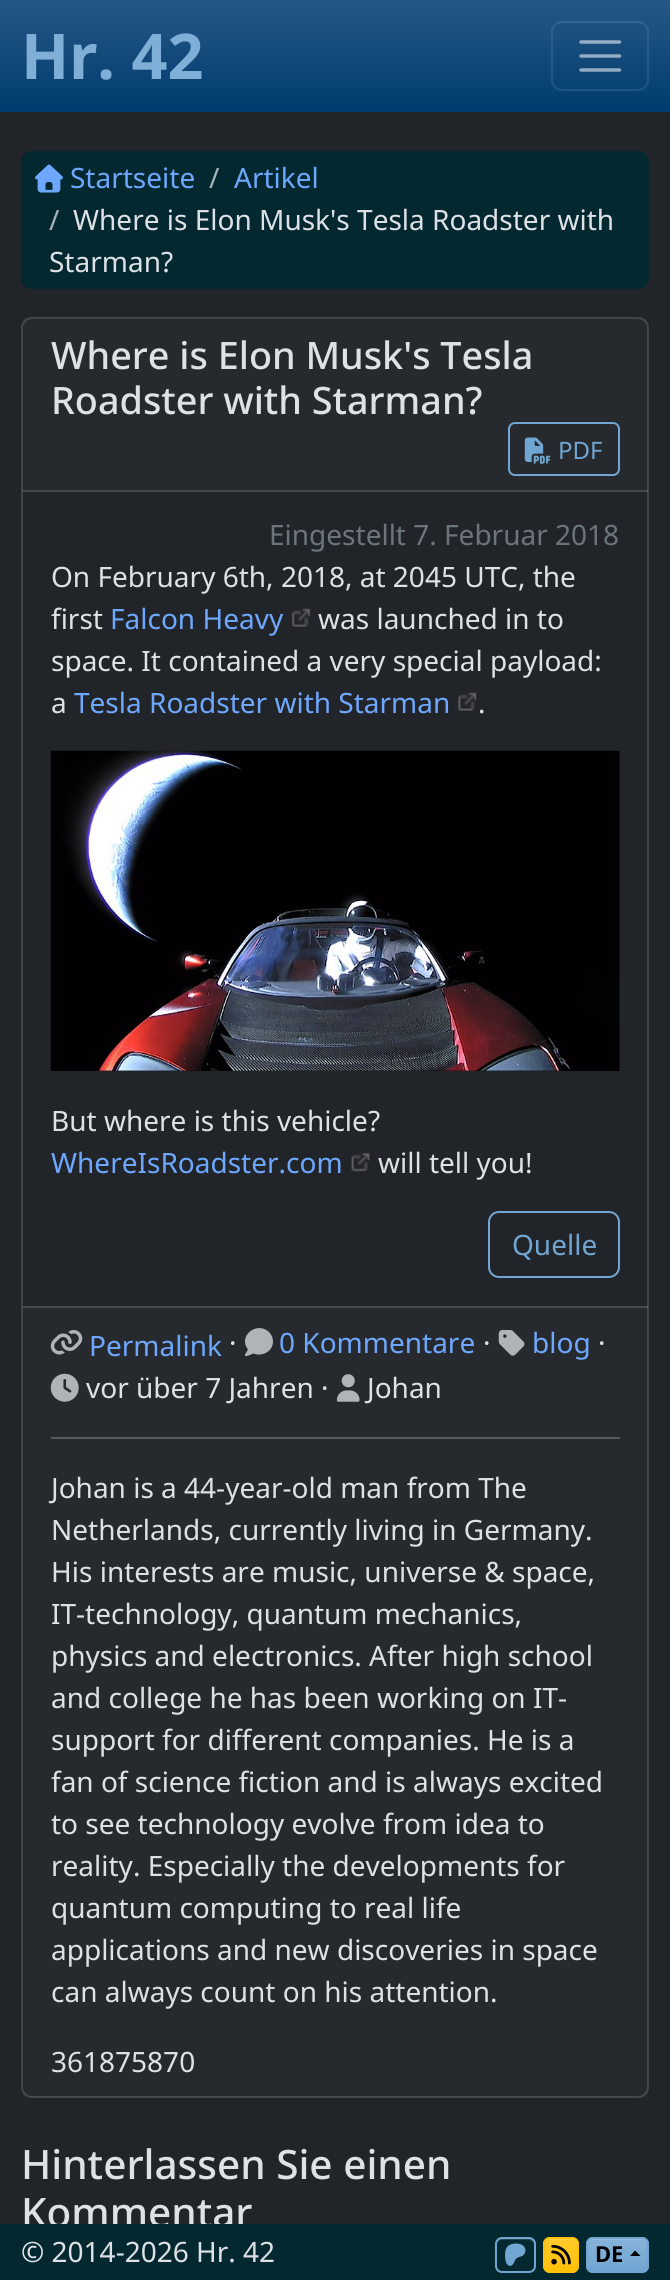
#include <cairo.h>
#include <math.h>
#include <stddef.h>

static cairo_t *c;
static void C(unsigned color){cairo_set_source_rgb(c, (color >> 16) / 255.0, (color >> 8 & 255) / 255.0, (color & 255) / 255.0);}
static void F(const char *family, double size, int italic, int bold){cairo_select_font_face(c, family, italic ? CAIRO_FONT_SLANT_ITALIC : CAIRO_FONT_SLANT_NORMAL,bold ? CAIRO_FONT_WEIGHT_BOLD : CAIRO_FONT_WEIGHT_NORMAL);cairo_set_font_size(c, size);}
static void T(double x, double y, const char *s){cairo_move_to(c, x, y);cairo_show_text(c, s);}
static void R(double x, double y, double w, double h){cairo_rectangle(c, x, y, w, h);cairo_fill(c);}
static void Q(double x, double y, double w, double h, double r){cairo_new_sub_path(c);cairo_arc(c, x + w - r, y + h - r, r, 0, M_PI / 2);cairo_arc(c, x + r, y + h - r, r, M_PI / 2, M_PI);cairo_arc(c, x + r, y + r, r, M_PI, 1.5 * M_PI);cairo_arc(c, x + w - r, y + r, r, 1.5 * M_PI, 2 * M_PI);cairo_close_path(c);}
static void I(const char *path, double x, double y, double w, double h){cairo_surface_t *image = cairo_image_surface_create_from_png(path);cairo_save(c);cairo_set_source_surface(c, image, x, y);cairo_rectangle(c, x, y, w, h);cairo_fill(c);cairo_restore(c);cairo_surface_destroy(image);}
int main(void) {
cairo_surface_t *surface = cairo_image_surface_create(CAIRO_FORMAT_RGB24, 670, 2280);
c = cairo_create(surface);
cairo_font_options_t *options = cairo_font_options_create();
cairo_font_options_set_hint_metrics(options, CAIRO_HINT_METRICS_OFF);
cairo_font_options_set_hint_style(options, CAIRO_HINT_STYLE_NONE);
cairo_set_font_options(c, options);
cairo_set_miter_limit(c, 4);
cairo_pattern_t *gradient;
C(0x212529);
cairo_paint(c);
gradient = cairo_pattern_create_linear(335,0,335,112);
cairo_pattern_add_color_stop_rgba(gradient,0,0.149,0.345,0.522,1);
cairo_pattern_add_color_stop_rgba(gradient,1,0,0.231,0.435,1);
cairo_set_source(c,gradient);
cairo_pattern_destroy(gradient);
R(0,0,670,112);
F("Noto Sans",63,0,1);
C(0x7fafd7);
T(21,79,"Hr. 42");
Q(552,22,96,68,10);
cairo_set_source_rgba(c,1,1,1,0.1);
cairo_stroke(c);
cairo_new_path(c);
cairo_move_to(c,581,42);
cairo_line_to(c,619.5,42);
cairo_move_to(c,581,56);
cairo_line_to(c,619.5,56);
cairo_move_to(c,581,70);
cairo_line_to(c,619.5,70);
cairo_set_source_rgba(c,1,1,1,0.55);
cairo_set_line_width(c,3.5);
cairo_set_line_cap(c,CAIRO_LINE_CAP_ROUND);
cairo_stroke(c);
C(0x032830);
Q(21,151,628,138,11);
cairo_fill(c);
I("1.png",35,164,28,29);
F("Noto Sans",28,0,0);
C(0x6ea8fe);
T(70,188,"Startseite");
C(0xa7b4b9);
T(209,188,"/");
C(0x6ea8fe);
T(234,188,"Artikel");
C(0xa7b4b9);
T(49,230,"/");
C(0xdee2e6);
T(73,230,"Where is Elon Musk's Tesla Roadster with");
T(49,272,"Starman?");
Q(22,318,626,1779,10);
C(0x424649);
cairo_set_line_width(c,2);
cairo_set_line_cap(c,CAIRO_LINE_CAP_BUTT);
cairo_stroke(c);
cairo_set_source_rgba(c,0.871,0.886,0.902,0.03);
R(23,319,625,173);
cairo_set_source_rgba(c,1,1,1,0.15);
R(23,490,625,2);
F("Noto Sans Medium",37.75,0,0);
C(0xdee2e6);
T(51,369,"Where is Elon Musk's Tesla");
T(51,414,"Roadster with Starman?");
Q(509,423,110,52,6);
C(0x71a6d2);
cairo_stroke(c);
I("2.png",524,437,27,27);
F("Noto Sans",24,0,0);
T(558,459,"PDF");
F("Noto Sans",28,0,0);
C(0x6c757d);
T(269,545,"Eingestellt 7. Februar 2018");
C(0xdee2e6);
T(51,587,"On February 6th, 2018, at 2045 UTC, the");
T(51,629,"first");
C(0x6ea8fe);
T(110,629,"Falcon Heavy");
I("3.png",291,608,20,19);
C(0xdee2e6);
T(318,629,"was launched in to");
T(51,671,"space. It contained a very special payload:");
T(51,713,"a");
C(0x6ea8fe);
T(74,713,"Tesla Roadster with Starman");
I("4.png",458,692,19,19);
C(0xdee2e6);
T(478,713,".");
I("5.png",50,750,570,321);
T(51,1131,"But where is this vehicle?");
C(0x6ea8fe);
T(51,1173,"WhereIsRoadster.com");
I("6.png",351,1152,19,20);
C(0xdee2e6);
T(378,1173,"will tell you!");
Q(489,1212,130,65,10);
C(0x71a6d2);
cairo_stroke(c);
T(512,1255,"Quelle");
cairo_set_source_rgba(c,0.871,0.886,0.902,0.03);
R(23,1306,625,791);
cairo_set_source_rgba(c,1,1,1,0.15);
R(23,1306,625,2);
I("7.png",50,1330,33,25);
C(0x6ea8fe);
T(89,1356,"Permalink");
C(0xdee2e6);
T(229,1353,"·");
C(0xb0b4b8);
cairo_new_path(c);
cairo_move_to(c,273,1341.5);
cairo_curve_to(c,273,1351.5,262,1357,253.5,1353.5);
cairo_curve_to(c,253,1353.5,243.5,1358.5,245,1354.5);
cairo_line_to(c,248,1349.5);
cairo_curve_to(c,237.5,1336.5,256.5,1320.5,269,1332);
cairo_curve_to(c,271.5,1334.5,273,1338,273,1341.5);
cairo_close_path(c);
cairo_fill(c);
C(0x6ea8fe);
T(279,1353,"0 Kommentare");
C(0xdee2e6);
T(483,1353,"·");
I("8.png",498,1330,27,26);
C(0x6ea8fe);
T(532,1353,"blog");
C(0xdee2e6);
T(598,1353,"·");
I("9.png",50,1373,29,29);
T(86,1398,"vor über 7 Jahren ·");
I("10.png",336,1374,24,28);
T(367,1398,"Johan");
C(0x55595d);
R(51,1437,569,2);
C(0xdee2e6);
T(51,1498,"Johan is a 44-year-old man from The");
T(51,1540,"Netherlands, currently living in Germany.");
T(51,1582,"His interests are music, universe & space,");
T(51,1624,"IT-technology, quantum mechanics,");
T(51,1666,"physics and electronics. After high school");
T(51,1708,"and college he has been working on IT-");
T(51,1750,"support for different companies. He is a");
T(51,1792,"fan of science fiction and is always excited");
T(51,1834,"to see technology evolve from idea to");
T(51,1876,"reality. Especially the developments for");
T(51,1918,"quantum computing to real life");
T(51,1960,"applications and new discoveries in space");
T(51,2002,"can always count on his attention.");
T(51,2072,"361875870");
F("Noto Sans Medium",40.5,0,0);
T(21,2179,"Hinterlassen Sie einen");
T(21,2227,"Kommentar");
C(0x032830);
R(0,2224,670,56);
F("Noto Sans",28,0,0);
C(0xdee2e6);
T(21,2262,"© 2014-2026 Hr. 42");
C(0x29484f);
cairo_new_path(c);
cairo_move_to(c,502,2240);
cairo_line_to(c,528,2240);
cairo_curve_to(c,531,2240,534,2242,534,2245);
cairo_curve_to(c,534,2237.5,531,2238,524.5,2238);
cairo_line_to(c,506.5,2238);
cairo_curve_to(c,500,2238,497,2237.5,497,2245);
cairo_curve_to(c,497,2242,499,2240,502,2240);
cairo_close_path(c);
cairo_fill(c);
Q(496,2238,39,34,6);
C(0x71a6d2);
cairo_stroke(c);
I("11.png",505,2243,21,23);
C(0xffc107);
Q(543,2237,36,36,7);
cairo_fill(c);
cairo_save(c);
Q(543,2237,36,36,7);
cairo_clip(c);
gradient = cairo_pattern_create_linear(561,2238,561,2272);
cairo_pattern_add_color_stop_rgba(gradient,0,1,1,1,.15);
cairo_pattern_add_color_stop_rgba(gradient,1,1,1,1,0);
cairo_set_source(c,gradient);
cairo_pattern_destroy(gradient);
R(543,2238,36,29);
cairo_restore(c);
cairo_set_source_rgba(c,1,1,1,0.15);
cairo_new_path(c);
cairo_move_to(c,550,2240);
cairo_line_to(c,572,2240);
cairo_curve_to(c,575,2240,578,2242,578,2245);
cairo_curve_to(c,578,2238,575.5,2238,569,2238);
cairo_line_to(c,553,2238);
cairo_curve_to(c,546.5,2238,544,2238,544,2245);
cairo_curve_to(c,544,2242,547,2240,550,2240);
cairo_close_path(c);
cairo_fill(c);
Q(544,2238,34,34,6);
C(0xffc107);
cairo_stroke(c);
I("12.png",551,2244,20,21);
C(0x71a6d2);
Q(586,2237,63,36,7);
cairo_fill(c);
cairo_save(c);
Q(586,2237,63,36,7);
cairo_clip(c);
gradient = cairo_pattern_create_linear(618,2238,618,2272);
cairo_pattern_add_color_stop_rgba(gradient,0,1,1,1,.15);
cairo_pattern_add_color_stop_rgba(gradient,1,1,1,1,0);
cairo_set_source(c,gradient);
cairo_pattern_destroy(gradient);
R(586,2238,63,29);
cairo_restore(c);
cairo_set_source_rgba(c,1,1,1,0.15);
cairo_new_path(c);
cairo_move_to(c,593,2240);
cairo_line_to(c,642,2240);
cairo_curve_to(c,645,2240,648,2242,648,2245);
cairo_curve_to(c,648,2236,642,2238,635,2238);
cairo_line_to(c,601,2238);
cairo_curve_to(c,594,2238,588,2236,588,2245);
cairo_curve_to(c,588,2242,590,2240,593,2240);
cairo_close_path(c);
cairo_fill(c);
Q(587,2238,61,34,6);
C(0x71a6d2);
cairo_stroke(c);
F("Noto Sans",22,0,1);
C(0x000000);
T(595,2262,"DE");
cairo_new_path(c);
cairo_move_to(c,640.5,2256);
cairo_line_to(c,630,2256);
cairo_line_to(c,635,2250.5);
cairo_close_path(c);
cairo_fill(c);
cairo_surface_write_to_png(surface, "o.png");
cairo_font_options_destroy(options);
cairo_destroy(c);
cairo_surface_destroy(surface);
return 0;
}
